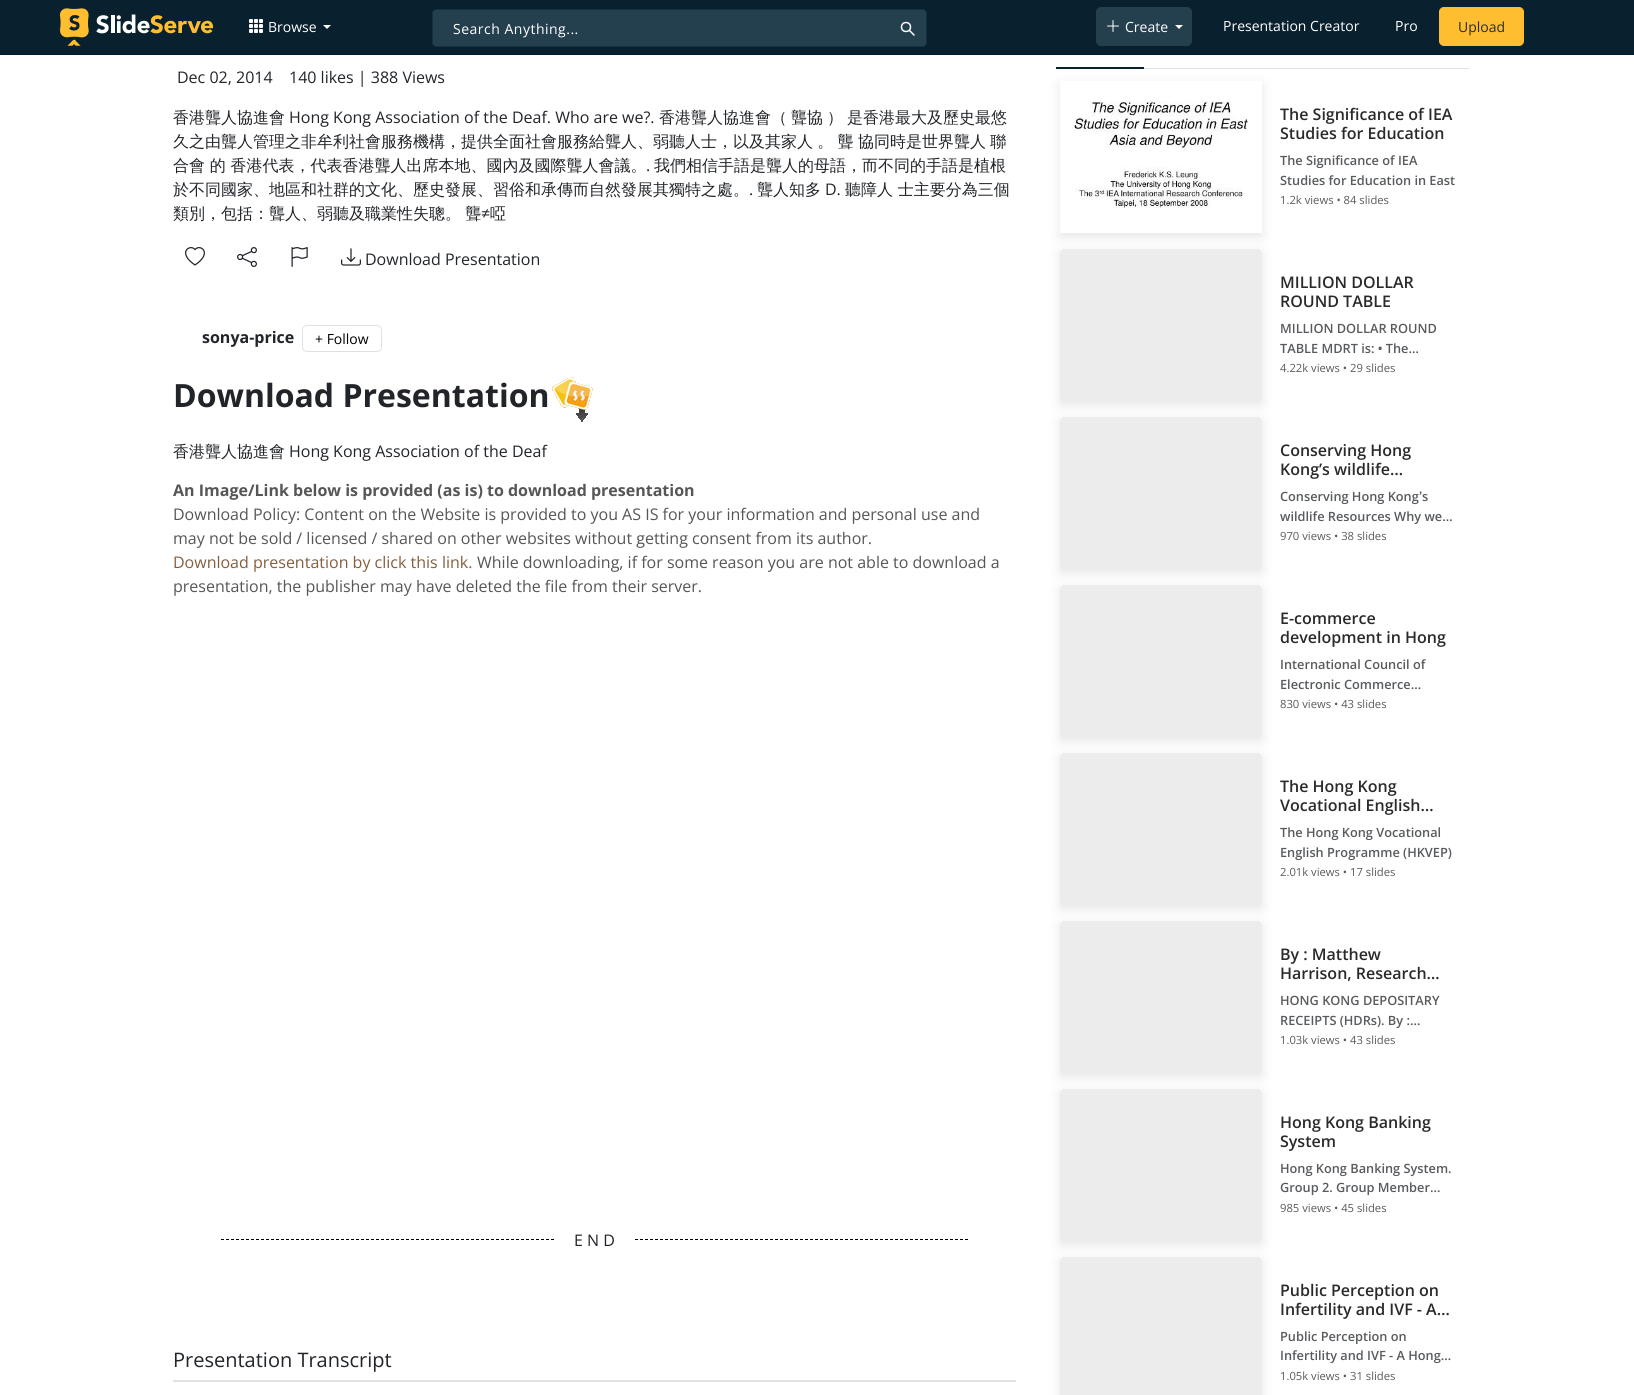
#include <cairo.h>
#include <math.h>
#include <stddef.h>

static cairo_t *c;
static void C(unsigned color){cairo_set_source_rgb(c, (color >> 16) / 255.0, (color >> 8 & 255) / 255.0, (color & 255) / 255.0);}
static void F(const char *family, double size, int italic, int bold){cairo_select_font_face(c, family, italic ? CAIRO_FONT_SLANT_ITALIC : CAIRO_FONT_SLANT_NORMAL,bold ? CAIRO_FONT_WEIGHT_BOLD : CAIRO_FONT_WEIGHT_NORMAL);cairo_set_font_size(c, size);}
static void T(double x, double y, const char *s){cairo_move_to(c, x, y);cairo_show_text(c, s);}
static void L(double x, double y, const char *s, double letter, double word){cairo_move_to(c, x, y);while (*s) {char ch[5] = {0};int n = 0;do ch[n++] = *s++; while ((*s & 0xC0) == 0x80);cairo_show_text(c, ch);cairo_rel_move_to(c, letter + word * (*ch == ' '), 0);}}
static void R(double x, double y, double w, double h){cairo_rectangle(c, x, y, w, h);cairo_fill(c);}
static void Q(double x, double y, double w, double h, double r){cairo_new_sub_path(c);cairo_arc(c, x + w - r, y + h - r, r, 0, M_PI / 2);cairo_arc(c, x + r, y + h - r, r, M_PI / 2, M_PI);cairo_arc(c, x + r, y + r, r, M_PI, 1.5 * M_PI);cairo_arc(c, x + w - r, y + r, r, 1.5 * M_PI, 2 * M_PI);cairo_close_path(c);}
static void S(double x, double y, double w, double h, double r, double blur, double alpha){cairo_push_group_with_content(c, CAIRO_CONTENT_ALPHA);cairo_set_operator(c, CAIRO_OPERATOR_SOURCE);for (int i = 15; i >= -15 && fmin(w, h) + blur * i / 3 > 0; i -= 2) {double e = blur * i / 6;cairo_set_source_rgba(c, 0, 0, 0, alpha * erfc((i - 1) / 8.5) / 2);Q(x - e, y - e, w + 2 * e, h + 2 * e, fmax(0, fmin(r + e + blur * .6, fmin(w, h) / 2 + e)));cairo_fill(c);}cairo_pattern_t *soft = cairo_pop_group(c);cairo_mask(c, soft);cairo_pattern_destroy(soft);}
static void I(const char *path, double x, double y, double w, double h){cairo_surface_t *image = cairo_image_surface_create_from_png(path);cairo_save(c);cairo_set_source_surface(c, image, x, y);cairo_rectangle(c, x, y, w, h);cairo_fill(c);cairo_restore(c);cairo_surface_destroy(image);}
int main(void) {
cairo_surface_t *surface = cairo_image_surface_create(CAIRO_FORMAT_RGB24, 1634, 1395);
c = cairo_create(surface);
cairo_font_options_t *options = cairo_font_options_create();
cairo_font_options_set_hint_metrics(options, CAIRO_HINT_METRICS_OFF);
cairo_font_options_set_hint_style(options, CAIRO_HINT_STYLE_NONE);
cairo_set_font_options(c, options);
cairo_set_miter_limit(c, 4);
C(0xffffff);
cairo_paint(c);
C(0x09212e);
R(0,0,1634,54);
C(0x061924);
R(0,54,1634,1);
I("1.png",59,8,155,38);
I("2.png",249,19,14,14);
F("Open Sans",14,0,0);
C(0xffffff);
T(268,32,"Browse");
cairo_new_path(c);
cairo_move_to(c,323,25);
cairo_line_to(c,331,25);
cairo_line_to(c,327,29);
cairo_close_path(c);
cairo_fill(c);
C(0x243f4e);
Q(1096.5,7.5,95,38,4.5);
cairo_fill_preserve(c);
cairo_set_line_width(c,1);
cairo_stroke(c);
I("3.png",1107,20,12,12);
C(0xffffff);
T(1125,32,"Create");
cairo_new_path(c);
cairo_move_to(c,1175,25);
cairo_line_to(c,1183,25);
cairo_line_to(c,1179,29);
cairo_close_path(c);
cairo_fill(c);
T(1223,31,"Presentation Creator");
T(1395,31,"Pro");
C(0xffbe2f);
Q(1439.5,7.5,84,38,4.5);
cairo_fill_preserve(c);
cairo_stroke(c);
C(0x2b2a2a);
T(1458,32,"Upload");
C(0x243f4e);
Q(432,9,495,38,5);
cairo_fill(c);
cairo_arc(c,906,27,4.5,0,2 * M_PI);
C(0xffffff);
cairo_set_line_width(c,1.5);
cairo_stroke(c);
cairo_new_path(c);
cairo_move_to(c,914,35);
cairo_line_to(c,909.5,30.5);
cairo_set_line_cap(c,CAIRO_LINE_CAP_ROUND);
cairo_set_line_join(c,CAIRO_LINE_JOIN_ROUND);
cairo_stroke(c);
Q(432.5,9.5,494,37,4.5);
C(0x152e40);
cairo_set_line_width(c,1);
cairo_set_line_cap(c,CAIRO_LINE_CAP_BUTT);
cairo_set_line_join(c,CAIRO_LINE_JOIN_MITER);
cairo_stroke(c);
C(0xffffff);
L(453,34,"Search Anything...",.5,0);
F("Open Sans",16,0,0);
C(0x212529);
T(177,83,"Dec 02, 2014");
T(289,83,"140 likes | 388 Views");
F("WenQuanYi Zen Hei Medium",16,0,0);
T(173,123,"香港聾人協進會");
F("Open Sans",16,0,0);
T(289,123,"Hong Kong Association of the Deaf. Who are we?.");
F("WenQuanYi Zen Hei Medium",16,0,0);
T(659,123,"香港聾人協進會（");
T(791,123,"聾協");
T(827,123,"）");
T(847,123,"是香港最大及歷史最悠");
L(173,147,"久之由聾人管理之非牟利社會服務機構，提供全面社會服務給聾人、弱聽人士，以及其家人 。 聾 協同時是世界聾人 聯",0,-.5);
T(173,171,"合會 的 香港代表，代表香港聾人出席本地、國內及國際聾人會議。");
F("Open Sans",16,0,0);
T(646,171,".");
F("WenQuanYi Zen Hei Medium",16,0,0);
T(654,171,"我們相信手語是聾人的母語，而不同的手語是植根");
T(173,195,"於不同國家、地區和社群的文化、歷史發展、習俗和承傳而自然發展其獨特之處。");
F("Open Sans",16,0,0);
T(749,195,".");
F("WenQuanYi Zen Hei Medium",16,0,0);
T(757,195,"聾人知多");
F("Open Sans",16,0,0);
T(825,195,"D.");
F("WenQuanYi Zen Hei Medium",16,0,0);
T(845,195,"聽障人 士主要分為三個");
L(173,219,"類別，包括：聾人、弱聽及職業性失聰。 聾",0,-.5);
F("Open Sans",16,0,0);
T(481,219,"≠");
F("WenQuanYi Zen Hei Medium",16,0,0);
T(490,219,"啞");
I("4.png",185,247,20,19);
I("5.png",237,247,20,20);
I("6.png",291,247,17,20);
I("7.png",341,248,20,18);
F("Open Sans",16,0,0);
T(365,265,"Download Presentation");
F("Open Sans",16,0,1);
T(202,343,"sonya-price");
Q(302.5,325.5,79,26,4.5);
C(0xdee2e6);
cairo_stroke(c);
F("Open Sans",14,0,0);
C(0x000000);
T(315,344,"+ Follow");
F("Open Sans",32,0,1);
C(0x212529);
T(173,407,"Download Presentation");
I("8.png",552,377,41,45);
F("WenQuanYi Zen Hei Medium",16,0,0);
T(173,457,"香港聾人協進會");
F("Open Sans",16,0,0);
T(289,457,"Hong Kong Association of the Deaf");
F("Open Sans",16,0,1);
C(0x565656);
T(173,496,"An Image/Link below is provided (as is) to download presentation");
F("Open Sans",16,0,0);
T(173,520,"Download Policy: Content on the Website is provided to you AS IS for your information and personal use and");
T(173,544,"may not be sold / licensed / shared on other websites without getting consent from its author.");
C(0x825f3f);
T(173,568,"Download presentation by click this link.");
C(0x565656);
T(477,568,"While downloading, if for some reason you are not able to download a");
T(173,592,"presentation, the publisher may have deleted the file from their server.");
cairo_new_path(c);
cairo_move_to(c,221,1239.5);
cairo_line_to(c,554,1239.5);
C(0x000000);
cairo_set_dash(c,(double[]){3,2},2,0);
cairo_stroke(c);
C(0x212529);
T(574,1246,"E N D");
cairo_new_path(c);
cairo_move_to(c,635,1239.5);
cairo_line_to(c,968,1239.5);
C(0x000000);
cairo_stroke(c);
F("Open Sans",20,0,0);
C(0x212529);
T(173,1367,"Presentation Transcript");
C(0xdee2e6);
R(173,1380,843,2);
R(1144,68,325,1);
C(0x09212e);
R(1056,67,88,2);
cairo_save(c);
cairo_set_fill_rule(c,CAIRO_FILL_RULE_EVEN_ODD);
cairo_new_path(c);
cairo_move_to(c,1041,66);
cairo_line_to(c,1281,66);
cairo_line_to(c,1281,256);
cairo_line_to(c,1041,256);
cairo_close_path(c);
cairo_move_to(c,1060,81);
cairo_line_to(c,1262,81);
cairo_line_to(c,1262,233);
cairo_line_to(c,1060,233);
cairo_close_path(c);
cairo_clip(c);
C(0x000000);
S(1060,85,202,152,0,6,.1);
cairo_restore(c);
I("9.png",1071,101,178,107);
F("Open Sans SemiBold",16,0,0);
C(0x2b2a2a);
T(1280,120,"The Significance of IEA");
T(1280,139,"Studies for Education");
F("Open Sans SemiBold",12.75,0,0);
C(0x585b5e);
T(1280,165,"The Significance of IEA");
T(1280,185,"Studies for Education in East");
F("Open Sans",11.25,0,0);
T(1280,204,"1.2k views • 84 slides");
C(0x000000);
S(1060,253,202,152,0,6,.1);
C(0xececec);
Q(1060,249,202,152,5);
cairo_fill(c);
F("Open Sans SemiBold",16,0,0);
C(0x2b2a2a);
T(1280,288,"MILLION DOLLAR");
T(1280,307,"ROUND TABLE");
F("Open Sans SemiBold",12.75,0,0);
C(0x585b5e);
T(1280,333,"MILLION DOLLAR ROUND");
T(1280,353,"TABLE MDRT is: • The…");
F("Open Sans",11.25,0,0);
T(1280,372,"4.22k views • 29 slides");
C(0x000000);
S(1060,421,202,152,0,6,.1);
C(0xececec);
Q(1060,417,202,152,5);
cairo_fill(c);
F("Open Sans SemiBold",16,0,0);
C(0x2b2a2a);
T(1280,456,"Conserving Hong");
T(1280,475,"Kong’s wildlife…");
F("Open Sans SemiBold",12.75,0,0);
C(0x585b5e);
T(1280,501,"Conserving Hong Kong");
F("WenQuanYi Zen Hei",12.75,0,1);
T(1419,501,"’");
F("Open Sans SemiBold",12.75,0,0);
T(1422,501,"s");
T(1280,521,"wildlife Resources Why we…");
F("Open Sans",11.25,0,0);
T(1280,540,"970 views • 38 slides");
C(0x000000);
S(1060,589,202,152,0,6,.1);
C(0xececec);
Q(1060,585,202,152,5);
cairo_fill(c);
F("Open Sans SemiBold",16,0,0);
C(0x2b2a2a);
T(1280,624,"E-commerce");
T(1280,643,"development in Hong");
F("Open Sans SemiBold",12.75,0,0);
C(0x585b5e);
T(1280,669,"International Council of");
T(1280,689,"Electronic Commerce…");
F("Open Sans",11.25,0,0);
T(1280,708,"830 views • 43 slides");
C(0x000000);
S(1060,757,202,152,0,6,.1);
C(0xececec);
Q(1060,753,202,152,5);
cairo_fill(c);
F("Open Sans SemiBold",16,0,0);
C(0x2b2a2a);
T(1280,792,"The Hong Kong");
T(1280,811,"Vocational English…");
F("Open Sans SemiBold",12.75,0,0);
C(0x585b5e);
T(1280,837,"The Hong Kong Vocational");
T(1280,857,"English Programme (HKVEP)");
F("Open Sans",11.25,0,0);
T(1280,876,"2.01k views • 17 slides");
C(0x000000);
S(1060,925,202,152,0,6,.1);
C(0xececec);
Q(1060,921,202,152,5);
cairo_fill(c);
F("Open Sans SemiBold",16,0,0);
C(0x2b2a2a);
T(1280,960,"By : Matthew");
T(1280,979,"Harrison, Research…");
F("Open Sans SemiBold",12.75,0,0);
C(0x585b5e);
T(1280,1005,"HONG KONG DEPOSITARY");
T(1280,1025,"RECEIPTS (HDRs). By :…");
F("Open Sans",11.25,0,0);
T(1280,1044,"1.03k views • 43 slides");
C(0x000000);
S(1060,1093,202,152,0,6,.1);
C(0xececec);
Q(1060,1089,202,152,5);
cairo_fill(c);
F("Open Sans SemiBold",16,0,0);
C(0x2b2a2a);
T(1280,1128,"Hong Kong Banking");
T(1280,1147,"System");
F("Open Sans SemiBold",12.75,0,0);
C(0x585b5e);
T(1280,1173,"Hong Kong Banking System.");
T(1280,1192,"Group 2. Group Member…");
F("Open Sans",11.25,0,0);
T(1280,1212,"985 views • 45 slides");
C(0x000000);
S(1060,1261,202,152,0,6,.1);
C(0xececec);
Q(1060,1257,202,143,5);
cairo_fill(c);
F("Open Sans SemiBold",16,0,0);
C(0x2b2a2a);
T(1280,1296,"Public Perception on");
T(1280,1315,"Infertility and IVF - A…");
F("Open Sans SemiBold",12.75,0,0);
C(0x585b5e);
T(1280,1341,"Public Perception on");
T(1280,1360,"Infertility and IVF - A Hong…");
F("Open Sans",11.25,0,0);
T(1280,1380,"1.05k views • 31 slides");
cairo_surface_write_to_png(surface, "o.png");
cairo_font_options_destroy(options);
cairo_destroy(c);
cairo_surface_destroy(surface);
return 0;
}
